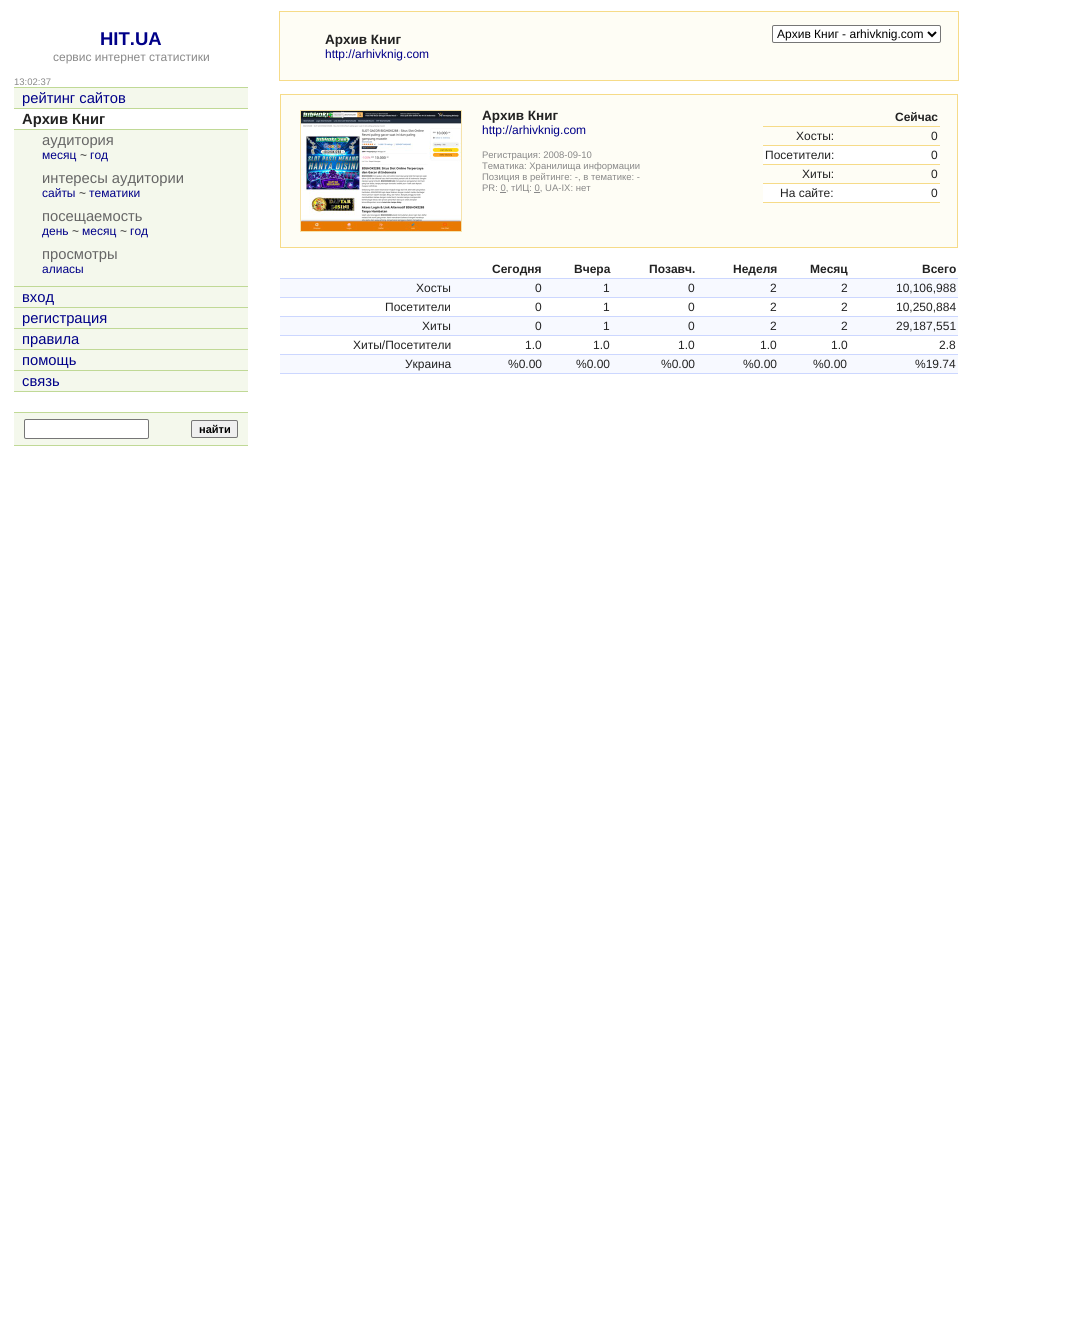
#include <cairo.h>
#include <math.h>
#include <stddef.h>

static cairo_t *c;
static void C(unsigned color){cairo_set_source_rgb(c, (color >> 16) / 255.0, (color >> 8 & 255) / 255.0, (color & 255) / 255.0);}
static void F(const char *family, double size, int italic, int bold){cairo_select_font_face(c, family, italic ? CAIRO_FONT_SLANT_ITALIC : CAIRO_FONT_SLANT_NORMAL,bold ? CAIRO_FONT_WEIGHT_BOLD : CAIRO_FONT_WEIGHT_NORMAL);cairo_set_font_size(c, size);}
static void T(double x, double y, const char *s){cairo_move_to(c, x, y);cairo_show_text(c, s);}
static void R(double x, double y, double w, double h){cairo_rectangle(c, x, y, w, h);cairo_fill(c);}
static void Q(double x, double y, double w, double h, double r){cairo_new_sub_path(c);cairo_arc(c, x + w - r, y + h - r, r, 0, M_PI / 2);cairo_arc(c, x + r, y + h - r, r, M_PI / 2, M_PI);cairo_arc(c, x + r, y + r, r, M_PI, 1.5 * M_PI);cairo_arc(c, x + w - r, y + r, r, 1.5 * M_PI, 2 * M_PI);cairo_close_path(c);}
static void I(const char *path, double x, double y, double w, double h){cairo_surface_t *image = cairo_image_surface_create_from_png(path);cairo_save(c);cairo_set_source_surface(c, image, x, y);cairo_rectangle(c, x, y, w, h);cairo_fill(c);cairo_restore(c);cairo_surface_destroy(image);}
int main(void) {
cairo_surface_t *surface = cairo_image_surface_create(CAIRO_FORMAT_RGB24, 1074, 1340);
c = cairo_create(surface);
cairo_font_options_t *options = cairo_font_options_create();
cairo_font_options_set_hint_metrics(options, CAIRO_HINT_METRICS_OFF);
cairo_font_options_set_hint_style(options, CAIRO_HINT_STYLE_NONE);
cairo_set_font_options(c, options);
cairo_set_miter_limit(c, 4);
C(0xffffff);
cairo_paint(c);
F("Liberation Sans",18.5,0,1);
C(0x000088);
T(100,45,"HIT.UA");
F("Liberation Sans",12,0,0);
C(0x888888);
T(53,61,"сервис интернет статистики");
F("Liberation Sans",9.5,0,0);
T(14,85,"13:02:37");
C(0xf4f8ec);
R(14,88,234,303);
C(0xc0d996);
R(14,87,234,1);
F("Liberation Sans",14.75,0,0);
C(0x000088);
T(22,103,"рейтинг сайтов");
C(0xffffff);
R(14,109,234,20);
C(0xc0d996);
R(14,108,234,1);
F("Liberation Sans",14.75,0,1);
C(0x222222);
T(22,124,"Архив Книг");
C(0xc0d996);
R(14,129,234,1);
F("Liberation Sans",14.75,0,0);
C(0x666666);
T(42,145,"аудитория");
F("Liberation Sans",12,0,0);
C(0x000088);
T(42,159,"месяц");
C(0x222222);
T(80,159,"~");
C(0x000088);
T(90,159,"год");
F("Liberation Sans",14.75,0,0);
C(0x666666);
T(42,183,"интересы аудитории");
F("Liberation Sans",12,0,0);
C(0x000088);
T(42,197,"сайты");
C(0x222222);
T(79,197,"~");
C(0x000088);
T(89,197,"тематики");
F("Liberation Sans",14.75,0,0);
C(0x666666);
T(42,221,"посещаемость");
F("Liberation Sans",12,0,0);
C(0x000088);
T(42,235,"день");
C(0x222222);
T(72,235,"~");
C(0x000088);
T(82,235,"месяц");
C(0x222222);
T(120,235,"~");
C(0x000088);
T(130,235,"год");
F("Liberation Sans",14.75,0,0);
C(0x666666);
T(42,259,"просмотры");
F("Liberation Sans",12,0,0);
C(0x000088);
T(42,273,"алиасы");
C(0xc0d996);
R(14,286,234,1);
F("Liberation Sans",14.75,0,0);
C(0x000088);
T(22,302,"вход");
C(0xc0d996);
R(14,307,234,1);
C(0x000088);
T(22,323,"регистрация");
C(0xc0d996);
R(14,328,234,1);
C(0x000088);
T(22,344,"правила");
C(0xc0d996);
R(14,349,234,1);
C(0x000088);
T(22,365,"помощь");
C(0xc0d996);
R(14,370,234,1);
C(0x000088);
T(22,386,"связь");
C(0xc0d996);
R(14,391,234,1);
C(0xf4f8ec);
R(14,413,234,32);
C(0xc0d996);
R(14,412,234,1);
R(14,445,234,1);
C(0xffffff);
Q(24.5,419.5,124,19,1.5);
cairo_fill_preserve(c);
C(0x767676);
cairo_set_line_width(c,1);
cairo_stroke(c);
C(0xefefef);
Q(191.5,420.5,46,17,1.5);
cairo_fill_preserve(c);
C(0x767676);
cairo_stroke(c);
F("Liberation Sans",11,0,1);
C(0x000000);
T(199,433,"найти");
C(0xfefdf5);
cairo_rectangle(c,279.5,11.5,679,69);
cairo_fill_preserve(c);
C(0xf6db88);
cairo_stroke(c);
F("Liberation Sans",13.5,0,1);
C(0x222222);
T(325,44,"Архив Книг");
F("Liberation Sans",12,0,0);
C(0x000088);
T(325,58,"http://arhivknig.com");
C(0xffffff);
Q(772.5,25.5,168,17,1.5);
cairo_fill_preserve(c);
C(0x767676);
cairo_stroke(c);
cairo_new_path(c);
cairo_move_to(c,928,32);
cairo_line_to(c,932,36);
cairo_line_to(c,936,32);
C(0x000000);
cairo_set_line_width(c,2);
cairo_stroke(c);
T(777,38,"Архив Книг - arhivknig.com");
C(0xfefdf5);
cairo_rectangle(c,280.5,94.5,677,153);
cairo_fill_preserve(c);
C(0xf6db88);
cairo_set_line_width(c,1);
cairo_stroke(c);
cairo_rectangle(c,300.5,110.5,161,121);
C(0xf5e2ab);
cairo_stroke(c);
I("1.png",301,111,160,120);
F("Liberation Sans",13.5,0,1);
C(0x222222);
T(482,120,"Архив Книг");
F("Liberation Sans",12,0,0);
C(0x000088);
T(482,134,"http://arhivknig.com");
F("Liberation Sans",9.5,0,0);
C(0x888888);
T(482,158,"Регистрация: 2008-09-10");
T(482,169,"Тематика: Хранилища информации");
T(482,180,"Позиция в рейтинге: -, в тематике: -");
T(482,191,"PR: 0, тИЦ: 0, UA-IX: нет");
R(500,192,6,1);
R(534,192,6,1);
F("Liberation Sans",12,0,1);
C(0x222222);
T(895,121,"Сейчас");
C(0xf6db88);
R(763,126,177,1);
R(763,145,177,1);
F("Liberation Sans",12,0,0);
C(0x222222);
T(796,140,"Хосты:");
T(931,140,"0");
C(0xffffff);
R(763,146,177,18);
C(0xf6db88);
R(763,164,177,1);
C(0x222222);
T(765,159,"Посетители:");
T(931,159,"0");
C(0xf6db88);
R(763,183,177,1);
C(0x222222);
T(802,178,"Хиты:");
T(931,178,"0");
C(0xffffff);
R(763,184,177,18);
C(0xf6db88);
R(763,202,177,1);
C(0x222222);
T(780,197,"На сайте:");
T(931,197,"0");
F("Liberation Sans",12,0,1);
T(492,273,"Сегодня");
T(574,273,"Вчера");
T(649,273,"Позавч.");
T(733,273,"Неделя");
T(810,273,"Месяц");
T(922,273,"Всего");
C(0xccd7ff);
R(280,278,678,1);
C(0xf7f9ff);
R(280,279,678,18);
C(0xccd7ff);
R(280,297,678,1);
F("Liberation Sans",12,0,0);
C(0x222222);
T(416,292,"Хосты");
T(535,292,"0");
T(603,292,"1");
T(688,292,"0");
T(770,292,"2");
T(841,292,"2");
T(896,292,"10,106,988");
C(0xccd7ff);
R(280,316,678,1);
C(0x222222);
T(385,311,"Посетители");
T(535,311,"0");
T(603,311,"1");
T(688,311,"0");
T(770,311,"2");
T(841,311,"2");
T(896,311,"10,250,884");
C(0xf7f9ff);
R(280,317,678,18);
C(0xccd7ff);
R(280,335,678,1);
C(0x222222);
T(422,330,"Хиты");
T(535,330,"0");
T(603,330,"1");
T(688,330,"0");
T(770,330,"2");
T(841,330,"2");
T(896,330,"29,187,551");
C(0xccd7ff);
R(280,354,678,1);
C(0x222222);
T(353,349,"Хиты/Посетители");
T(525,349,"1.0");
T(593,349,"1.0");
T(678,349,"1.0");
T(760,349,"1.0");
T(831,349,"1.0");
T(939,349,"2.8");
C(0xf7f9ff);
R(280,355,678,18);
C(0xccd7ff);
R(280,373,678,1);
C(0x222222);
T(405,368,"Украина");
T(508,368,"%0.00");
T(576,368,"%0.00");
T(661,368,"%0.00");
T(743,368,"%0.00");
T(813,368,"%0.00");
T(915,368,"%19.74");
cairo_surface_write_to_png(surface, "o.png");
cairo_font_options_destroy(options);
cairo_destroy(c);
cairo_surface_destroy(surface);
return 0;
}
